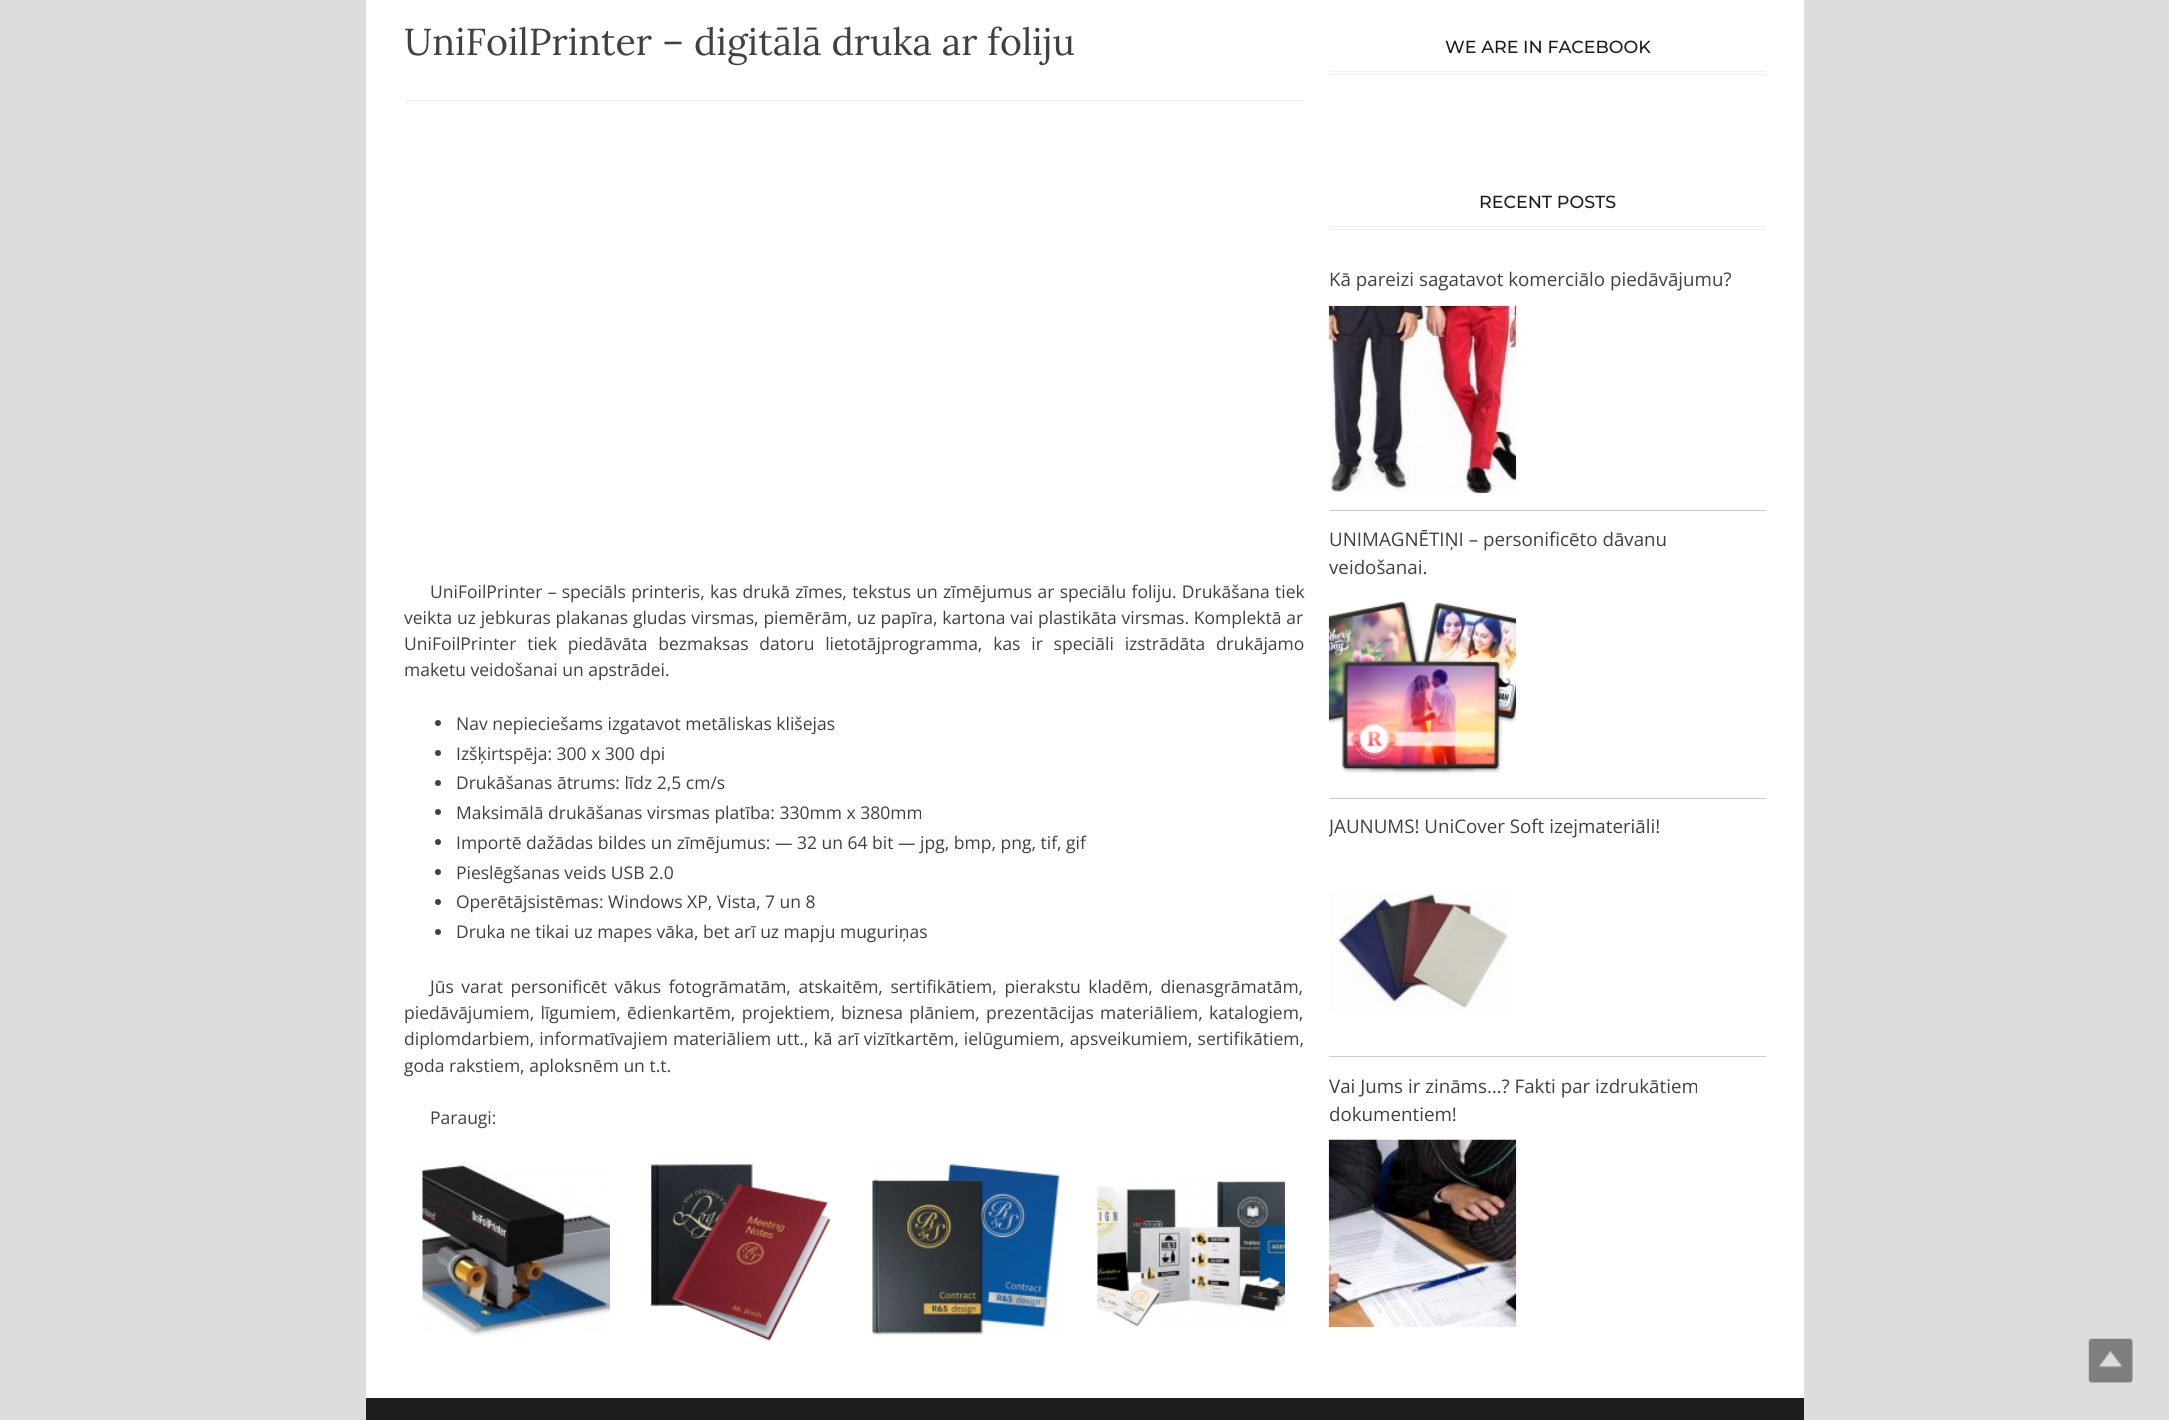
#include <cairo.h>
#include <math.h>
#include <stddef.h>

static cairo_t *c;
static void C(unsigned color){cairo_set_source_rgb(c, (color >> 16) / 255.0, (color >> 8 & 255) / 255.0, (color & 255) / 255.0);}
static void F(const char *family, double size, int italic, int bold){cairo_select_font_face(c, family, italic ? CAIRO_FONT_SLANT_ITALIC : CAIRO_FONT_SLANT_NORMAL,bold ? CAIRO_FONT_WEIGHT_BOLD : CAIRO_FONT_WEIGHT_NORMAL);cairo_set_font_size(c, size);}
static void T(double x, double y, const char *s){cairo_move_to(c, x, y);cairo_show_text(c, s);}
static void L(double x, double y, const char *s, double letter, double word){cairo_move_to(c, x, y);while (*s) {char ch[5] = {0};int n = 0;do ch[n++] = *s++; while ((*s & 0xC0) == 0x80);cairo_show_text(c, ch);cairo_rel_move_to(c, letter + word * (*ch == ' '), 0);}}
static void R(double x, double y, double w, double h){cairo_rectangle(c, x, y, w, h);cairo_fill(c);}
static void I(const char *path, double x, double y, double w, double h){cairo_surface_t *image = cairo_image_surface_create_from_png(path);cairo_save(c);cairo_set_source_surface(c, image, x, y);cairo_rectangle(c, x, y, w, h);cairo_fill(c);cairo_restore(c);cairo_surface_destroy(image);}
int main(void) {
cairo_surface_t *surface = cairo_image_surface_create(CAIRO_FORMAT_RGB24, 2169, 1420);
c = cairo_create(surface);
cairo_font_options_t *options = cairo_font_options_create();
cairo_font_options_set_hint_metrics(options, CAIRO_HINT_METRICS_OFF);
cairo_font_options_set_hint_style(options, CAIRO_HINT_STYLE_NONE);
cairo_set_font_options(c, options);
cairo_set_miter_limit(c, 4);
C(0xdddddd);
cairo_paint(c);
C(0xffffff);
R(366,0,1438,1398);
C(0xeeeeee);
R(404,100,900,1);
F("Lora",37.5,0,0);
C(0x404040);
T(404,55,"UniFoilPrinter – digitālā druka ar foliju");
F("Open Sans",17.5,0,0);
L(430,598,"UniFoilPrinter – speciāls printeris, kas drukā zīmes, tekstus un zīmējumus ar speciālu foliju. Drukāšana tiek",0,.75);
L(404,624,"veikta uz jebkuras plakanas gludas virsmas, piemērām, uz papīra, kartona vai plastikāta virsmas. Komplektā ar",0,.25);
L(404,650,"UniFoilPrinter tiek piedāvāta bezmaksas datoru lietotājprogramma, kas ir speciāli izstrādāta drukājamo",0,6.25);
T(404,676,"maketu veidošanai un apstrādei.");
cairo_new_path(c);
cairo_arc(c,438,723,3,0,2 * M_PI);
cairo_fill(c);
T(456,730,"Nav nepieciešams izgatavot metāliskas klišejas");
cairo_new_path(c);
cairo_arc(c,438,753,3,0,2 * M_PI);
cairo_fill(c);
T(456,760,"Izšķirtspēja: 300 x 300 dpi");
cairo_new_path(c);
cairo_arc(c,438,783,3,0,2 * M_PI);
cairo_fill(c);
T(456,789,"Drukāšanas ātrums: līdz 2,5 cm/s");
cairo_new_path(c);
cairo_arc(c,438,812,3,0,2 * M_PI);
cairo_fill(c);
T(456,819,"Maksimālā drukāšanas virsmas platība: 330mm x 380mm");
cairo_new_path(c);
cairo_arc(c,438,842,3,0,2 * M_PI);
cairo_fill(c);
T(456,849,"Importē dažādas bildes un zīmējumus: — 32 un 64 bit — jpg, bmp, png, tif, gif");
cairo_new_path(c);
cairo_arc(c,438,872,3,0,2 * M_PI);
cairo_fill(c);
T(456,879,"Pieslēgšanas veids USB 2.0");
cairo_new_path(c);
cairo_arc(c,438,902,3,0,2 * M_PI);
cairo_fill(c);
T(456,908,"Operētājsistēmas: Windows XP, Vista, 7 un 8");
cairo_new_path(c);
cairo_arc(c,438,932,3,0,2 * M_PI);
cairo_fill(c);
T(456,938,"Druka ne tikai uz mapes vāka, bet arī uz mapju muguriņas");
L(430,993,"Jūs varat personificēt vākus fotogrāmatām, atskaitēm, sertifikātiem, pierakstu kladēm, dienasgrāmatām,",0,3);
L(404,1019,"piedāvājumiem, līgumiem, ēdienkartēm, projektiem, biznesa plāniem, prezentācijas materiāliem, katalogiem,",0,1.75);
L(404,1045,"diplomdarbiem, informatīvajiem materiāliem utt., kā arī vizītkartēm, ielūgumiem, apsveikumiem, sertifikātiem,",0,.5);
T(404,1072,"goda rakstiem, aploksnēm un t.t.");
T(430,1124,"Paraugi:");
I("1.png",422,1165,188,171);
I("2.png",650,1164,181,177);
I("3.png",872,1164,188,171);
I("4.png",1097,1180,188,147);
C(0xeeeeee);
R(1329,71,437,1);
R(1329,74,437,1);
F("Montserrat Medium",17.5,0,0);
C(0x1d1d1d);
T(1445,53,"WE ARE IN FACEBOOK");
C(0xeeeeee);
R(1329,226,437,1);
R(1329,229,437,1);
C(0x1d1d1d);
T(1479,208,"RECENT POSTS");
C(0xcccccc);
R(1329,510,437,1);
F("Open Sans",18.75,0,0);
C(0x404040);
T(1329,286,"Kā pareizi sagatavot komerciālo piedāvājumu?");
I("5.png",1328,305,189,189);
C(0xcccccc);
R(1329,798,437,1);
C(0x404040);
T(1329,546,"UNIMAGNĒTIŅI – personificēto dāvanu");
T(1329,574,"veidošanai.");
I("6.png",1328,601,189,173);
C(0xcccccc);
R(1329,1056,437,1);
cairo_save(c);
cairo_rectangle(c,1329,176,437,1172);
cairo_clip(c);
C(0x404040);
T(1329,833,"JAUNUMS! UniCover Soft izejmateriāli!");
cairo_restore(c);
I("7.png",1329,891,180,121);
C(0x404040);
T(1329,1093,"Vai Jums ir zināms…? Fakti par izdrukātiem");
T(1329,1121,"dokumentiem!");
I("8.png",1328,1139,189,188);
C(0x1d1d1d);
R(366,1398,1438,22);
I("9.png",2088,1338,45,45);
cairo_surface_write_to_png(surface, "o.png");
cairo_font_options_destroy(options);
cairo_destroy(c);
cairo_surface_destroy(surface);
return 0;
}
